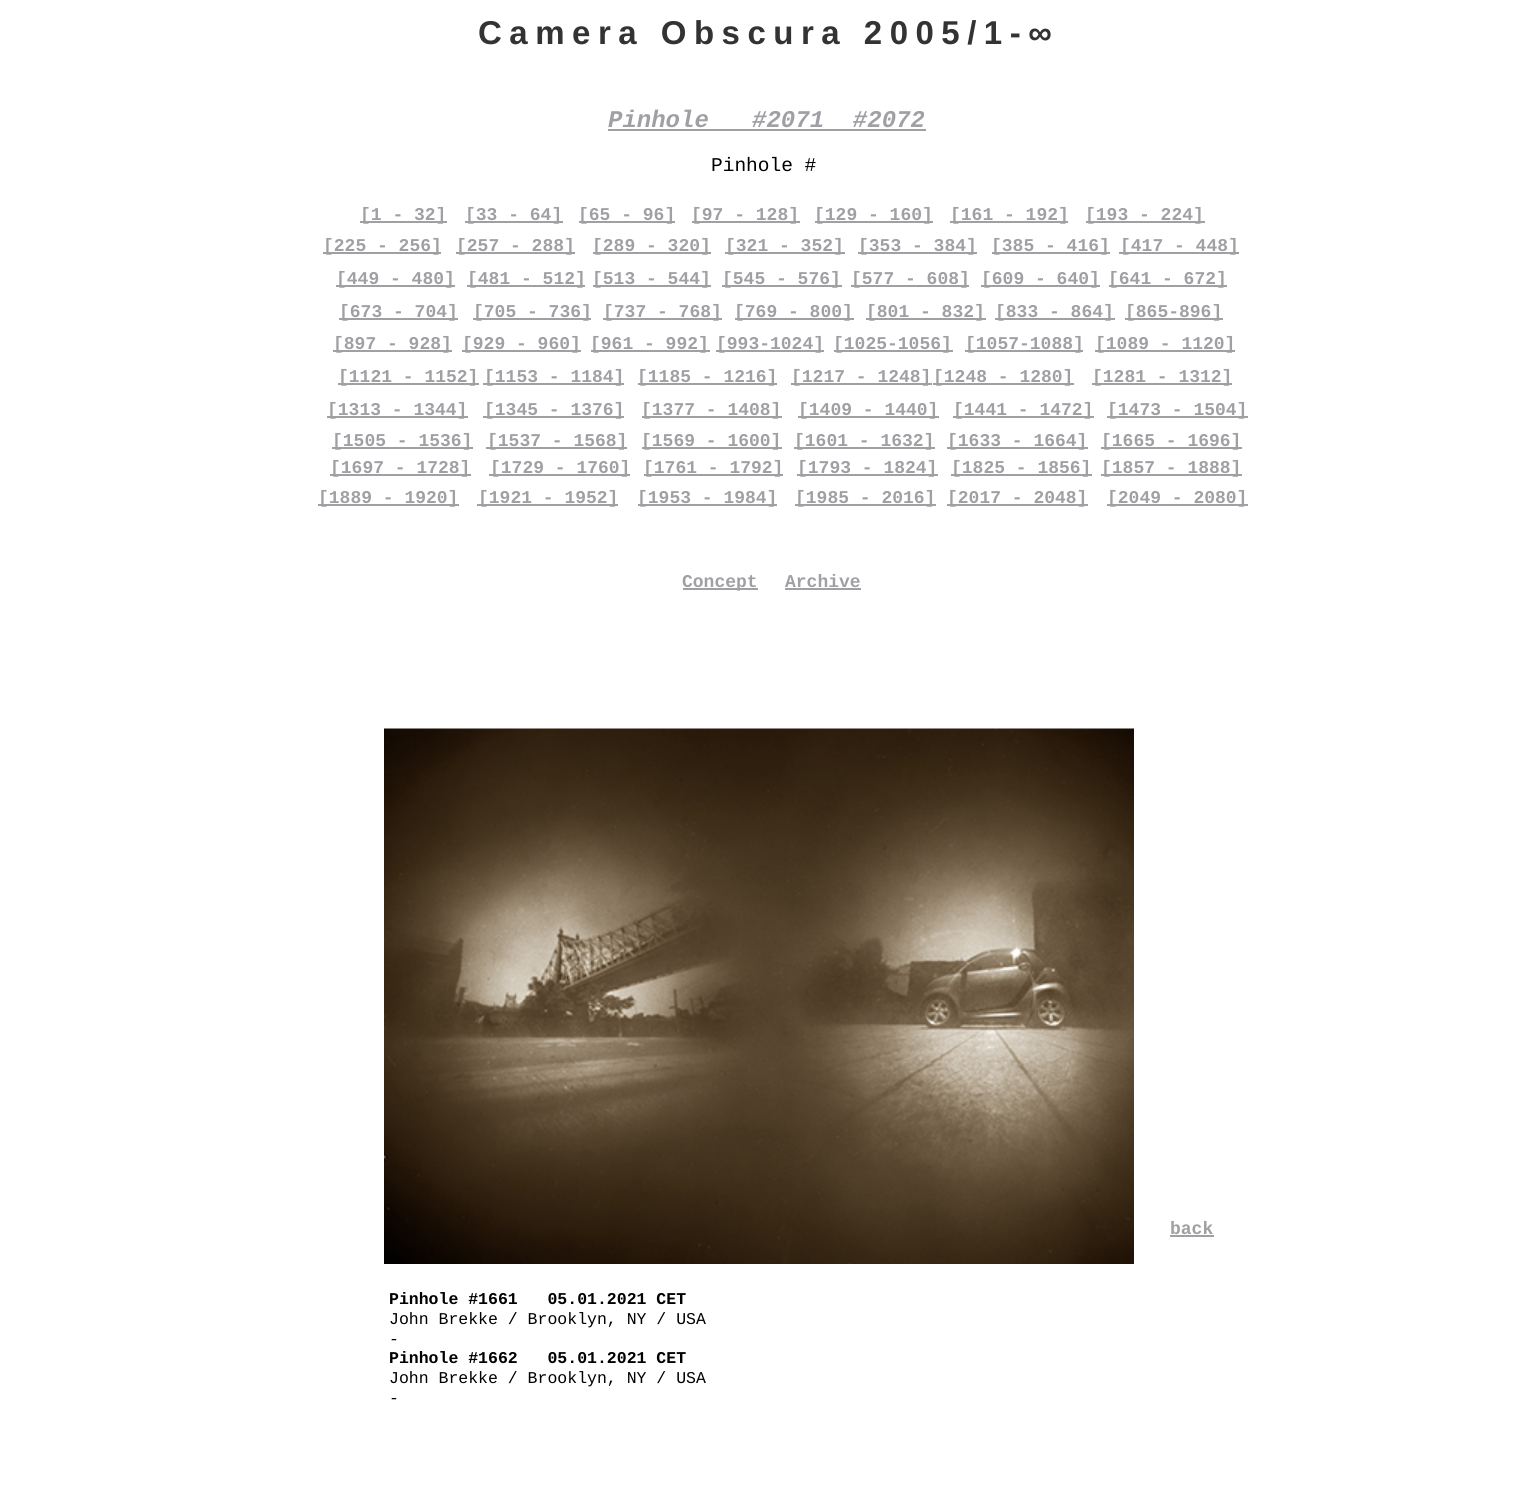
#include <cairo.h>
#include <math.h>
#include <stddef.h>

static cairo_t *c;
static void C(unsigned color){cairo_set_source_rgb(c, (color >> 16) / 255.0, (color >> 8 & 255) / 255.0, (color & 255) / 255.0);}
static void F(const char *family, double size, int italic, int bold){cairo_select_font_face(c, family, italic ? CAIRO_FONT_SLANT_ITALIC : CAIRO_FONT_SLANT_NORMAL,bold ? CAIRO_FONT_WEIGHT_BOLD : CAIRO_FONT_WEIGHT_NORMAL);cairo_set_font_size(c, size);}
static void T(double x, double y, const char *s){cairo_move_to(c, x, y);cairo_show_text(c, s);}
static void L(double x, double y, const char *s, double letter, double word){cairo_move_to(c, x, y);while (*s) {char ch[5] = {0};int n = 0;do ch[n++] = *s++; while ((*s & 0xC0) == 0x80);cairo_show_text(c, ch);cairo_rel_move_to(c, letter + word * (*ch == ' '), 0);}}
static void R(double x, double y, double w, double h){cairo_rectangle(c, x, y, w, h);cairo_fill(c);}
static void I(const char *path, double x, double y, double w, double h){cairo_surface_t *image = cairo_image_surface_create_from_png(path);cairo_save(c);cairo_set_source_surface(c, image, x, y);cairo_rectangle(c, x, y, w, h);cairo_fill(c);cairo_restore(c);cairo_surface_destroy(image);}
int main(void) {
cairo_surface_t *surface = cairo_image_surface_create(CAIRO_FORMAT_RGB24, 1518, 1489);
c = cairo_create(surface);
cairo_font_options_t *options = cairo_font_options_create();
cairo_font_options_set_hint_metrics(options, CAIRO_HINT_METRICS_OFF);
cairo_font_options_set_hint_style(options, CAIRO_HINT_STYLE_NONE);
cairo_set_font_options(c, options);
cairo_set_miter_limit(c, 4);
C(0xffffff);
cairo_paint(c);
F("Liberation Sans",33,0,1);
C(0x333333);
L(478,44,"Camera Obscura 2005/1-∞",7.5,0);
F("Liberation Mono",24,1,1);
C(0xa0a0a4);
T(608,127,"Pinhole   #2071  #2072");
R(608,129,318,2);
F("Liberation Mono",19.5,0,0);
C(0x000000);
T(711,171,"Pinhole #");
C(0xa0a0a4);
R(360,221,87,2);
F("Liberation Mono",18,0,1);
T(360,220,"[1 - 32]");
R(465,221,98,2);
T(465,220,"[33 - 64]");
R(579,221,96,2);
T(578,220,"[65 - 96]");
R(692,221,108,2);
T(691,220,"[97 - 128]");
R(815,221,118,2);
T(814,220,"[129 - 160]");
R(950,221,118,2);
T(950,220,"[161 - 192]");
R(1086,221,119,2);
T(1085,220,"[193 - 224]");
R(323,252,118,2);
T(323,251,"[225 - 256]");
R(456,252,119,2);
T(456,251,"[257 - 288]");
R(593,252,118,2);
T(592,251,"[289 - 320]");
R(725,252,120,2);
T(725,251,"[321 - 352]");
R(858,252,119,2);
T(858,251,"[353 - 384]");
R(992,252,118,2);
T(991,251,"[385 - 416]");
R(1119,252,120,2);
T(1120,251,"[417 - 448]");
R(336,285,119,2);
T(336,284,"[449 - 480]");
R(339,318,119,2);
T(339,317,"[673 - 704]");
R(467,285,118,2);
T(467,284,"[481 - 512]");
R(473,318,118,2);
T(473,317,"[705 - 736]");
R(593,285,118,2);
T(592,284,"[513 - 544]");
R(722,285,120,2);
T(722,284,"[545 - 576]");
R(851,285,118,2);
T(851,284,"[577 - 608]");
R(981,285,119,2);
T(981,284,"[609 - 640]");
R(1109,285,118,2);
T(1108,284,"[641 - 672]");
R(603,318,119,2);
T(603,317,"[737 - 768]");
R(735,318,119,2);
T(734,317,"[769 - 800]");
R(866,318,120,2);
T(866,317,"[801 - 832]");
R(995,318,120,2);
T(995,317,"[833 - 864]");
R(1125,318,98,2);
T(1125,317,"[865-896]");
R(333,350,119,2);
T(333,349,"[897 - 928]");
R(462,350,119,2);
T(462,349,"[929 - 960]");
R(591,350,119,2);
T(590,349,"[961 - 992]");
R(716,350,108,2);
T(716,349,"[993-1024]");
R(834,350,119,2);
T(833,349,"[1025-1056]");
R(965,350,118,2);
T(965,349,"[1057-1088]");
R(1095,350,140,2);
T(1095,349,"[1089 - 1120]");
R(338,383,141,2);
T(338,382,"[1121 - 1152]");
R(483,383,141,2);
T(484,382,"[1153 - 1184]");
R(327,416,141,2);
T(327,415,"[1313 - 1344]");
R(332,447,141,2);
T(332,446,"[1505 - 1536]");
R(330,474,141,2);
T(330,473,"[1697 - 1728]");
R(318,504,141,2);
T(318,503,"[1889 - 1920]");
R(483,416,141,2);
T(484,415,"[1345 - 1376]");
R(486,447,141,2);
T(487,446,"[1537 - 1568]");
R(489,474,141,2);
T(490,473,"[1729 - 1760]");
R(477,504,141,2);
T(478,503,"[1921 - 1952]");
R(638,383,139,2);
T(637,382,"[1185 - 1216]");
R(642,416,140,2);
T(641,415,"[1377 - 1408]");
R(642,447,140,2);
T(641,446,"[1569 - 1600]");
R(644,474,139,2);
T(643,473,"[1761 - 1792]");
R(638,504,139,2);
T(637,503,"[1953 - 1984]");
R(683,588,75,2);
T(682,587,"Concept");
R(791,383,141,2);
T(791,382,"[1217 - 1248]");
R(933,383,141,2);
T(933,382,"[1248 - 1280]");
R(1092,383,140,2);
T(1092,382,"[1281 - 1312]");
R(798,416,141,2);
T(798,415,"[1409 - 1440]");
R(794,447,141,2);
T(794,446,"[1601 - 1632]");
R(797,474,141,2);
T(797,473,"[1793 - 1824]");
R(795,504,141,2);
T(795,503,"[1985 - 2016]");
T(785,587,"Archive");
R(785,588,76,2);
R(953,416,141,2);
T(953,415,"[1441 - 1472]");
R(947,447,141,2);
T(947,446,"[1633 - 1664]");
R(951,474,141,2);
T(951,473,"[1825 - 1856]");
R(947,504,141,2);
T(947,503,"[2017 - 2048]");
R(1107,416,141,2);
T(1107,415,"[1473 - 1504]");
R(1101,447,141,2);
T(1101,446,"[1665 - 1696]");
R(1101,474,141,2);
T(1101,473,"[1857 - 1888]");
R(1107,504,141,2);
T(1107,503,"[2049 - 2080]");
I("1.png",384,728,750,536);
T(1170,1234,"back");
R(1170,1235,44,2);
F("Liberation Mono",16.5,0,1);
C(0x000000);
T(389,1304,"Pinhole #1661   05.01.2021 CET");
F("Liberation Mono",16.5,0,0);
T(389,1324,"John Brekke / Brooklyn, NY / USA");
F("Liberation Mono",16.5,1,0);
T(389,1344,"-");
F("Liberation Mono",16.5,0,1);
T(389,1363,"Pinhole #1662   05.01.2021 CET");
F("Liberation Mono",16.5,0,0);
T(389,1383,"John Brekke / Brooklyn, NY / USA");
F("Liberation Mono",16.5,1,0);
T(389,1403,"-");
cairo_surface_write_to_png(surface, "o.png");
cairo_font_options_destroy(options);
cairo_destroy(c);
cairo_surface_destroy(surface);
return 0;
}
